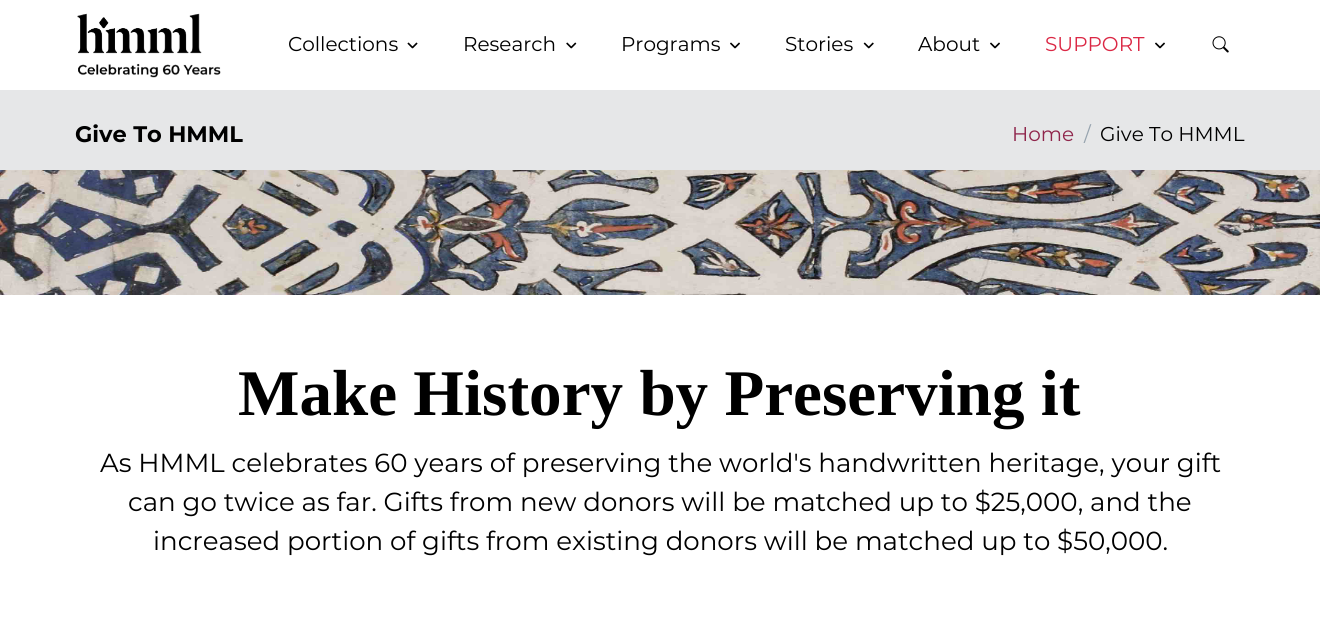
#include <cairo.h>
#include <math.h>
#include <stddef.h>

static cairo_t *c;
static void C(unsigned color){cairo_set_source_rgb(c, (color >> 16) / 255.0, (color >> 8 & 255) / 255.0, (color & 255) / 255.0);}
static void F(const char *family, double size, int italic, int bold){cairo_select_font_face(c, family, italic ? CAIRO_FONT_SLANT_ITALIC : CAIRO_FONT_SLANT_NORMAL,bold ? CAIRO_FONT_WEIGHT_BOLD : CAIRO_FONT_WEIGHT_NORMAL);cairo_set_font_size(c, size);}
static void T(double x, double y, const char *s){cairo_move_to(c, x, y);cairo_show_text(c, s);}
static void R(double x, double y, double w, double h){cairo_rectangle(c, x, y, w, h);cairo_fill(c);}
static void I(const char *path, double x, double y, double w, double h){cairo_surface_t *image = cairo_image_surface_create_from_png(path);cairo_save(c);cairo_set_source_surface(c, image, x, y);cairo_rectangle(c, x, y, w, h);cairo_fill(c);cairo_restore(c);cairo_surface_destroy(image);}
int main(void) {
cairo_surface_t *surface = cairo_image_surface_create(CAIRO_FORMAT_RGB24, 1320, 630);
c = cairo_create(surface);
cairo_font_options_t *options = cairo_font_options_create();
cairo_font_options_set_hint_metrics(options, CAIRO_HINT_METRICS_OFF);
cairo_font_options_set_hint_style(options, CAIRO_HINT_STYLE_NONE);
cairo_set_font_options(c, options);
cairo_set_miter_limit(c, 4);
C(0xffffff);
cairo_paint(c);
I("1.png",77,13,144,65);
F("Montserrat",20,0,0);
C(0x000000);
T(288,51,"Collections");
I("2.png",407,42,11,7);
T(463,51,"Research");
I("3.png",566,42,11,7);
T(621,51,"Programs");
I("4.png",730,42,10,7);
T(785,51,"Stories");
I("5.png",863,42,11,7);
T(918,51,"About");
I("4.png",990,42,10,7);
C(0xdb2845);
T(1045,51,"SUPPORT");
I("4.png",1155,42,10,7);
I("6.png",1212,36,17,17);
C(0xe6e7e8);
R(0,90,1320,80);
F("Montserrat",22.5,0,1);
C(0x000000);
T(75,142,"Give To HMML");
F("Montserrat",20,0,0);
C(0x8f254b);
T(1012,141,"Home");
C(0x97a4af);
T(1084,141,"/");
C(0x000000);
T(1100,141,"Give To HMML");
I("7.png",0,170,1320,125);
F("Liberation Serif",65.1,0,1);
T(238,415,"Make History by Preserving it");
F("Montserrat",26.1,0,0);
T(100,472,"As HMML celebrates 60 years of preserving the world's handwritten heritage, your gift");
T(128,511,"can go twice as far. Gifts from new donors will be matched up to $25,000, and the");
T(153,550,"increased portion of gifts from existing donors will be matched up to $50,000.");
cairo_surface_write_to_png(surface, "o.png");
cairo_font_options_destroy(options);
cairo_destroy(c);
cairo_surface_destroy(surface);
return 0;
}
